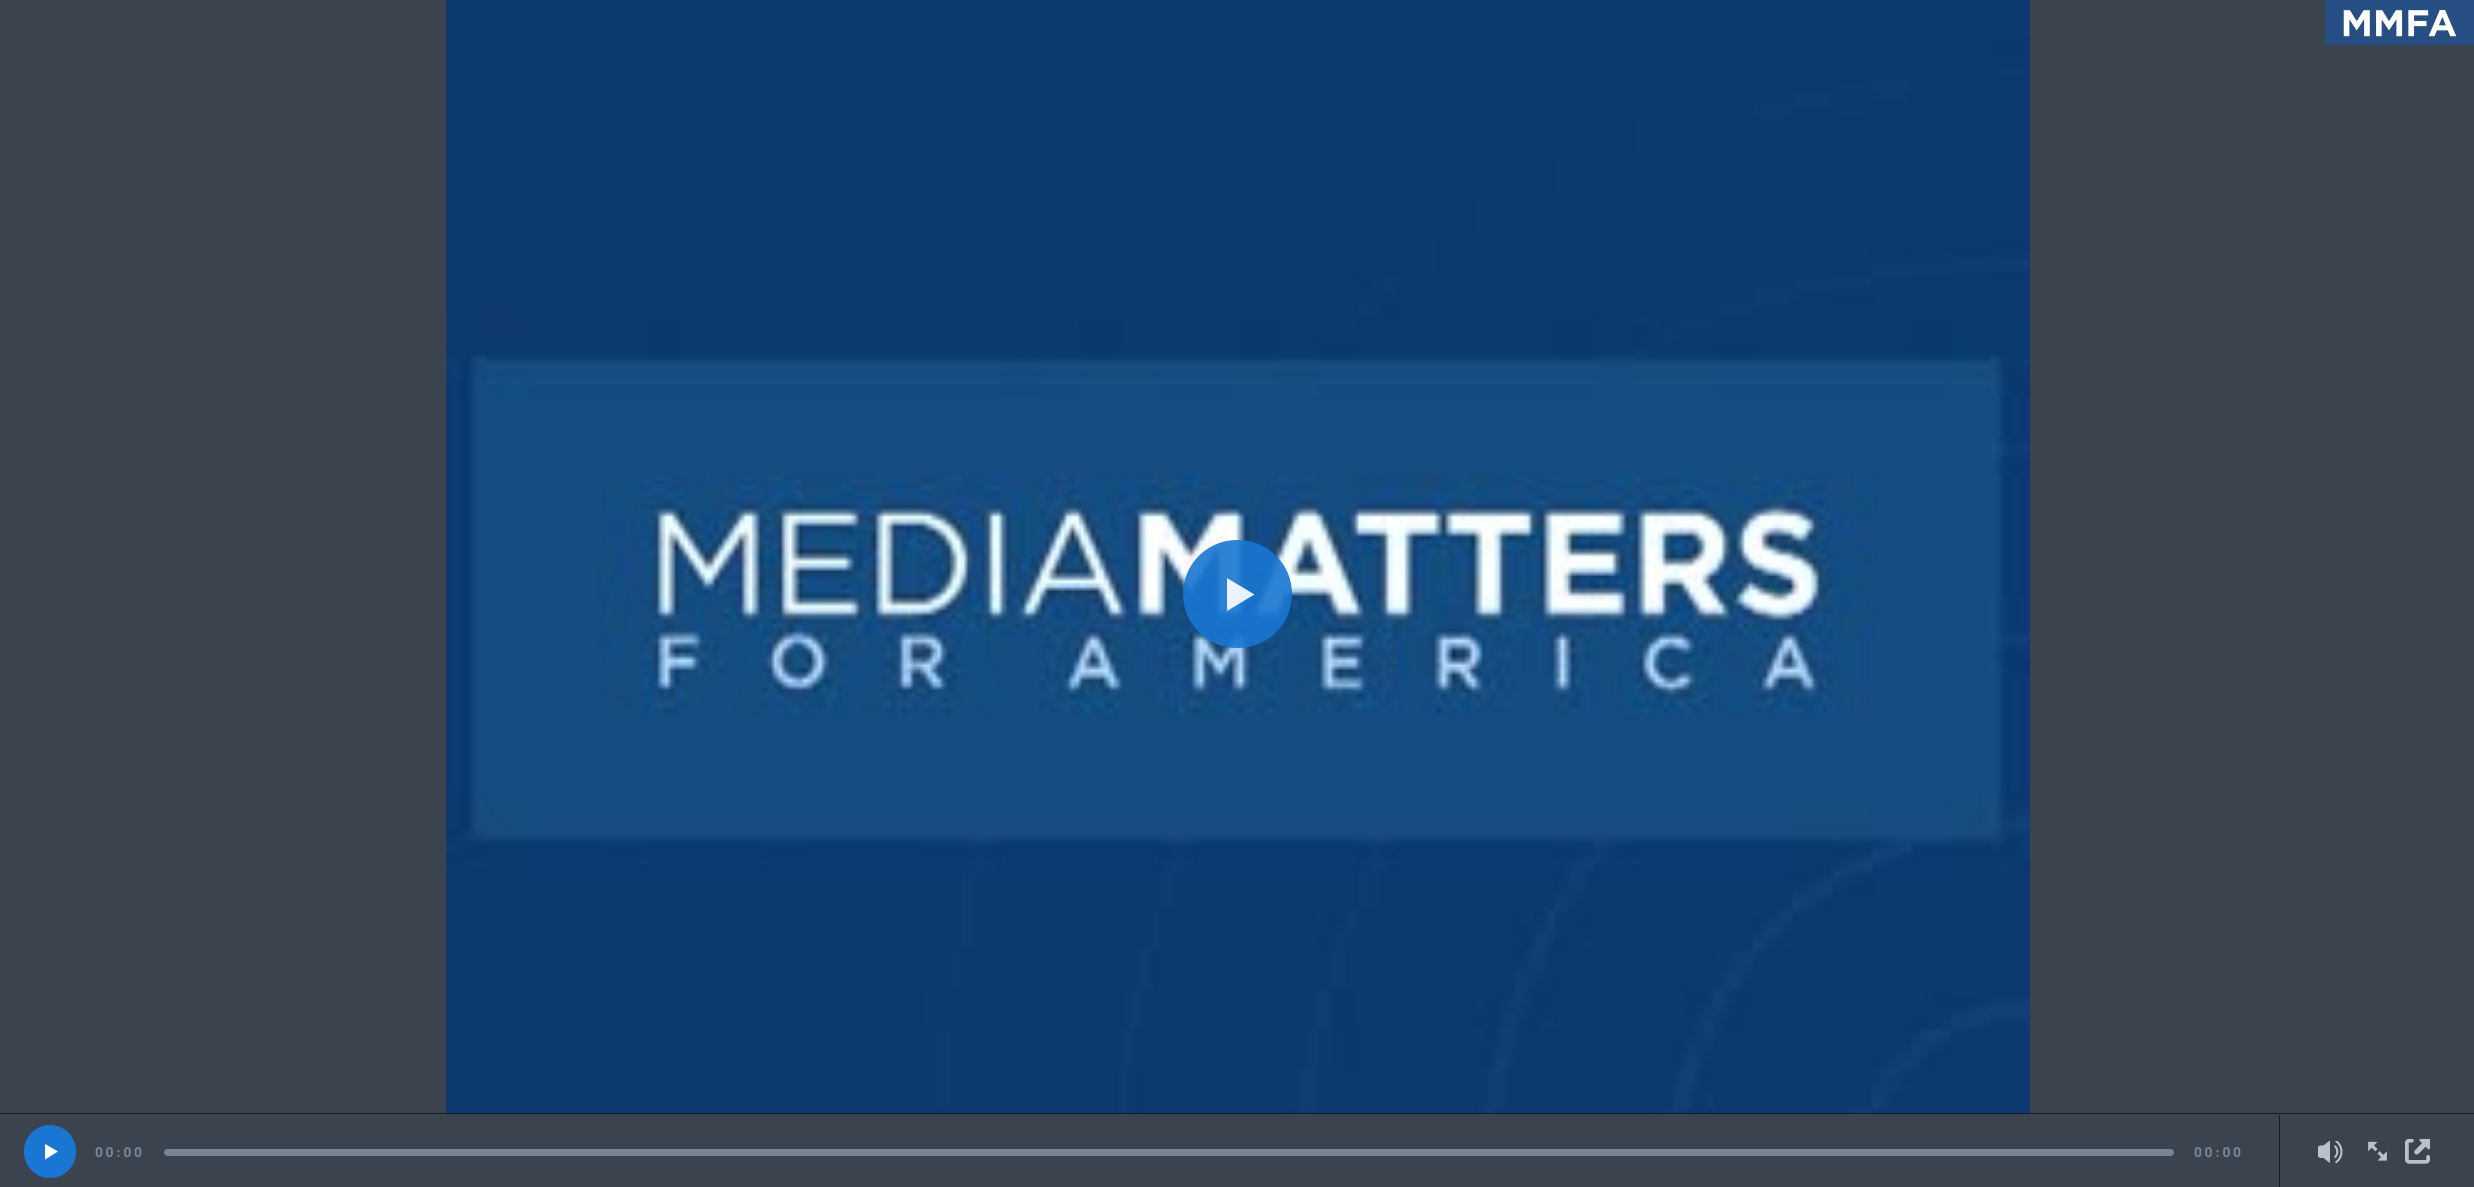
#include <cairo.h>
#include <math.h>
#include <stddef.h>

static cairo_t *c;
static void C(unsigned color){cairo_set_source_rgb(c, (color >> 16) / 255.0, (color >> 8 & 255) / 255.0, (color & 255) / 255.0);}
static void F(const char *family, double size, int italic, int bold){cairo_select_font_face(c, family, italic ? CAIRO_FONT_SLANT_ITALIC : CAIRO_FONT_SLANT_NORMAL,bold ? CAIRO_FONT_WEIGHT_BOLD : CAIRO_FONT_WEIGHT_NORMAL);cairo_set_font_size(c, size);}
static void L(double x, double y, const char *s, double letter, double word){cairo_move_to(c, x, y);while (*s) {char ch[5] = {0};int n = 0;do ch[n++] = *s++; while ((*s & 0xC0) == 0x80);cairo_show_text(c, ch);cairo_rel_move_to(c, letter + word * (*ch == ' '), 0);}}
static void R(double x, double y, double w, double h){cairo_rectangle(c, x, y, w, h);cairo_fill(c);}
static void Q(double x, double y, double w, double h, double r){cairo_new_sub_path(c);cairo_arc(c, x + w - r, y + h - r, r, 0, M_PI / 2);cairo_arc(c, x + r, y + h - r, r, M_PI / 2, M_PI);cairo_arc(c, x + r, y + r, r, M_PI, 1.5 * M_PI);cairo_arc(c, x + w - r, y + r, r, 1.5 * M_PI, 2 * M_PI);cairo_close_path(c);}
static void I(const char *path, double x, double y, double w, double h){cairo_surface_t *image = cairo_image_surface_create_from_png(path);cairo_save(c);cairo_set_source_surface(c, image, x, y);cairo_rectangle(c, x, y, w, h);cairo_fill(c);cairo_restore(c);cairo_surface_destroy(image);}
int main(void) {
cairo_surface_t *surface = cairo_image_surface_create(CAIRO_FORMAT_RGB24, 2474, 1187);
c = cairo_create(surface);
cairo_font_options_t *options = cairo_font_options_create();
cairo_font_options_set_hint_metrics(options, CAIRO_HINT_METRICS_OFF);
cairo_font_options_set_hint_style(options, CAIRO_HINT_STYLE_NONE);
cairo_set_font_options(c, options);
cairo_set_miter_limit(c, 4);
C(0x3a434e);
cairo_paint(c);
I("1.png",446,0,1584,1113);
I("2.png",2325,0,149,45);
cairo_set_source_rgba(c,0.098,0.463,0.824,0.9);
Q(1183,540,109,108,54);
cairo_fill(c);
cairo_set_source_rgba(c,1,1,1,0.9);
cairo_set_fill_rule(c,CAIRO_FILL_RULE_EVEN_ODD);
cairo_new_path(c);
cairo_move_to(c,1227,578);
cairo_line_to(c,1254.5,594.5);
cairo_line_to(c,1227,611);
cairo_close_path(c);
cairo_fill(c);
C(0x161c24);
R(0,1113,2474,1);
C(0x1976d2);
Q(24,1125,52,53,26);
cairo_fill(c);
C(0xffffff);
cairo_new_path(c);
cairo_move_to(c,45,1144);
cairo_line_to(c,58,1151.5);
cairo_line_to(c,45,1159.5);
cairo_close_path(c);
cairo_fill(c);
F("Barlow",14,0,1);
C(0x788592);
L(95,1157,"00:00",2.5,0);
Q(164,1149,2010,7,3.5);
cairo_fill(c);
L(2194,1157,"00:00",2.5,0);
C(0x161c24);
R(2279,1115,1,72);
I("3.png",2318,1141,25,23);
I("4.png",2368,1141,19,20);
I("5.png",2405,1139,25,25);
cairo_surface_write_to_png(surface, "o.png");
cairo_font_options_destroy(options);
cairo_destroy(c);
cairo_surface_destroy(surface);
return 0;
}
